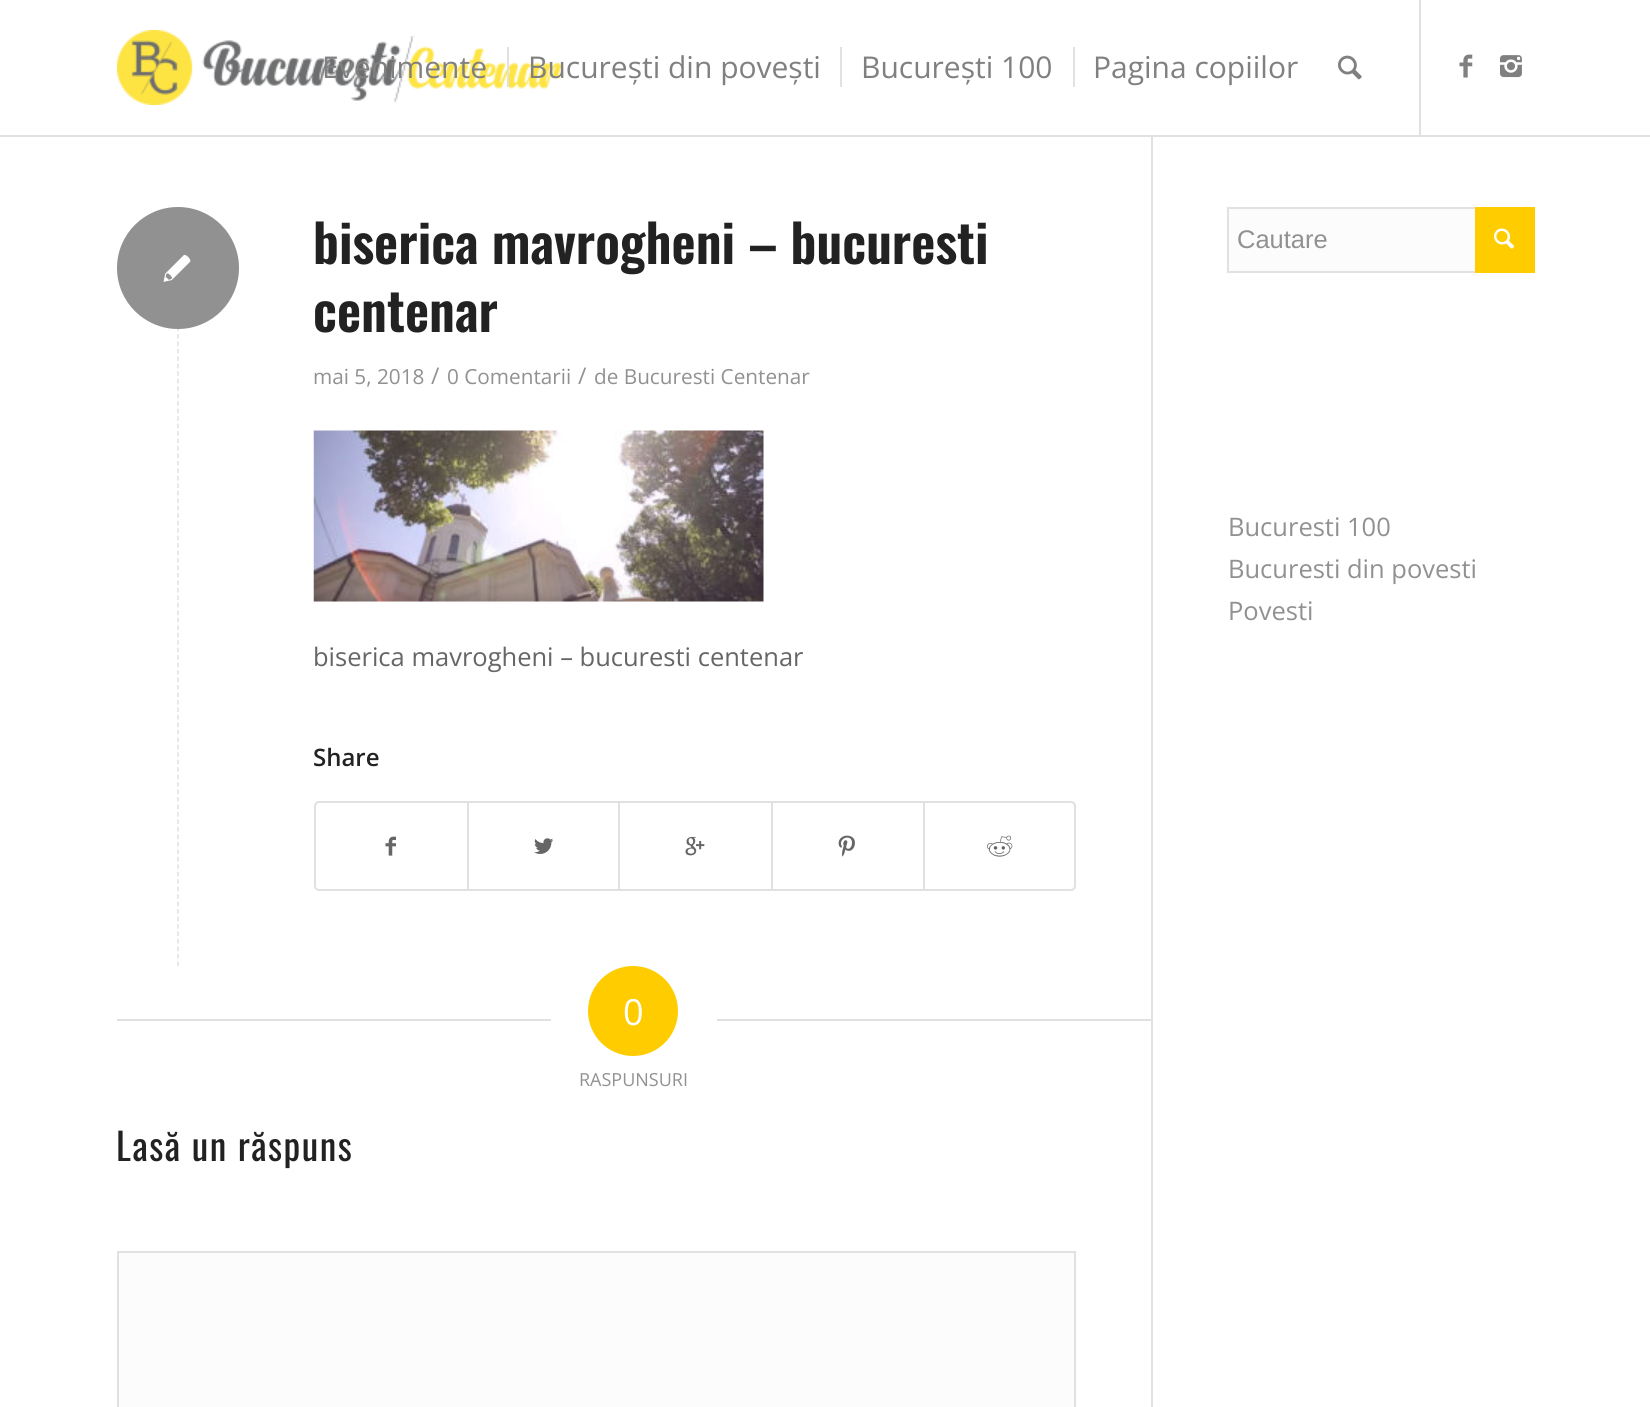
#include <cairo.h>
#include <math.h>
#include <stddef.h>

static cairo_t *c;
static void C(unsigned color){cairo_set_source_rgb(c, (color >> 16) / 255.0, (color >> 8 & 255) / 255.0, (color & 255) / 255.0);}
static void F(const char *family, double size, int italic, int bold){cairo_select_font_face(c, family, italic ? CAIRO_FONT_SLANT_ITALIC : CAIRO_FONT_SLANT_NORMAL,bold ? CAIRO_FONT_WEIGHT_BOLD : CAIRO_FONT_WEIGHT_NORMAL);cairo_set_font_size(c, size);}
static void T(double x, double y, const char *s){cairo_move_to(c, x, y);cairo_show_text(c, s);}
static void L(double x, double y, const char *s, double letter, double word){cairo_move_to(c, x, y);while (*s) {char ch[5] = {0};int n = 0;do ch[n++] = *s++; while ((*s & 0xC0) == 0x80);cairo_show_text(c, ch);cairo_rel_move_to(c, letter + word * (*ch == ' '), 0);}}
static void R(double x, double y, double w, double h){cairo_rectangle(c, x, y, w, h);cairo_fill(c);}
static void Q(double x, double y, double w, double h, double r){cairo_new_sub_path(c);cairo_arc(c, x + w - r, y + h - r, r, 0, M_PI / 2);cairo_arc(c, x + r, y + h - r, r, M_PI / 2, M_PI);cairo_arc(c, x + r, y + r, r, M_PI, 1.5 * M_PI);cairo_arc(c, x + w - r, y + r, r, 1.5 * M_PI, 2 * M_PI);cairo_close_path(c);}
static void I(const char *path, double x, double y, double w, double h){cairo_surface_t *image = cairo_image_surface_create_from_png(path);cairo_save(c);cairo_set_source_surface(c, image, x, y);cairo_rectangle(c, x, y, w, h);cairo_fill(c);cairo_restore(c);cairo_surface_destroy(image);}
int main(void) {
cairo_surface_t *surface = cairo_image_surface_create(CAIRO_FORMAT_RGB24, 1650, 1407);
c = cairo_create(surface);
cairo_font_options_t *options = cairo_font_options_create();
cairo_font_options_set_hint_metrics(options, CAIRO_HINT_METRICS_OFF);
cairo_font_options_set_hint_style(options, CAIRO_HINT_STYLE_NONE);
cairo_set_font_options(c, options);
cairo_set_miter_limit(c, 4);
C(0xffffff);
cairo_paint(c);
C(0xe1e1e1);
R(1151,132,2,1275);
R(0,135,1650,2);
I("1.png",117,30,448,75);
R(1419,0,2,135);
F("Open Sans",30,0,0);
C(0x808080);
T(322,78,"Evenimente");
T(528,78,"București din povești");
C(0xe1e1e1);
R(507,47,2,40);
C(0x808080);
T(861,78,"București 100");
C(0xe1e1e1);
R(840,47,2,40);
C(0x808080);
T(1093,78,"Pagina copiilor");
C(0xe1e1e1);
R(1073,47,2,40);
I("2.png",1338,55,24,25);
I("3.png",1459,54,14,24);
I("4.png",1500,55,22,23);
C(0xffffff);
R(1151,132,2,3);
cairo_new_path(c);
cairo_move_to(c,178,207);
cairo_line_to(c,178,966);
C(0xe1e1e1);
cairo_set_line_width(c,1.5);
cairo_set_dash(c,(double[]){4.5,2.97},2,0);
cairo_stroke(c);
C(0x919191);
cairo_arc(c,178,268,61,0,2 * M_PI);
cairo_fill(c);
I("5.png",163,254,28,28);
F("Oswald SemiBold",52.5,0,0);
C(0x222222);
T(313,264,"biserica mavrogheni – bucuresti");
T(313,332,"centenar");
F("Open Sans",20.75,0,0);
C(0x919191);
T(313,384,"mai 5, 2018");
F("Open Sans",23,0,0);
T(431,384,"/");
F("Open Sans",20.75,0,0);
T(447,384,"0 Comentarii");
F("Open Sans",23,0,0);
T(578,384,"/");
F("Open Sans",20.75,0,0);
T(594,384,"de Bucuresti Centenar");
I("6.png",313,430,451,172);
F("Open Sans",25.5,0,0);
C(0x666666);
T(313,666,"biserica mavrogheni – bucuresti centenar");
F("Open Sans SemiBold",24,0,0);
C(0x222222);
T(313,766,"Share");
Q(315,802,760,88,4);
C(0xe1e1e1);
cairo_set_line_width(c,2);
cairo_set_dash(c,NULL,0,0);
cairo_stroke(c);
I("7.png",385,836,11,20);
R(467,803,2,87);
I("8.png",534,838,20,16);
R(618,803,2,87);
I("9.png",685,836,20,20);
R(771,803,2,87);
I("10.png",838,835,17,22);
R(923,803,2,87);
I("11.png",987,835,26,22);
R(117,1019,434,2);
C(0xffcc00);
cairo_arc(c,633,1011,45,0,2 * M_PI);
cairo_fill(c);
F("Open Sans",36,0,0);
C(0xffffff);
T(623,1025,"0");
C(0xe1e1e1);
R(717,1019,434,2);
F("Open Sans",18,0,0);
C(0x919191);
T(579,1086,"RASPUNSURI");
F("Oswald",37.5,0,0);
C(0x222222);
L(116,1161,"Lasă un răspuns",1.5,0);
C(0xfcfcfc);
cairo_rectangle(c,118,1252,957,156);
cairo_fill_preserve(c);
C(0xe1e1e1);
cairo_stroke(c);
C(0xfcfcfc);
R(1229,209,246,62);
cairo_rectangle(c,1228,208,306,64);
C(0xe1e1e1);
cairo_stroke(c);
F("Liberation Sans",25.5,0,0);
C(0x919191);
T(1237,248,"Cautare");
C(0xffcc00);
R(1475,207,60,66);
I("12.png",1494,228,21,21);
F("Open Sans",25.5,0,0);
C(0x919191);
T(1228,536,"Bucuresti 100");
T(1228,578,"Bucuresti din povesti");
T(1228,620,"Povesti");
cairo_surface_write_to_png(surface, "o.png");
cairo_font_options_destroy(options);
cairo_destroy(c);
cairo_surface_destroy(surface);
return 0;
}
